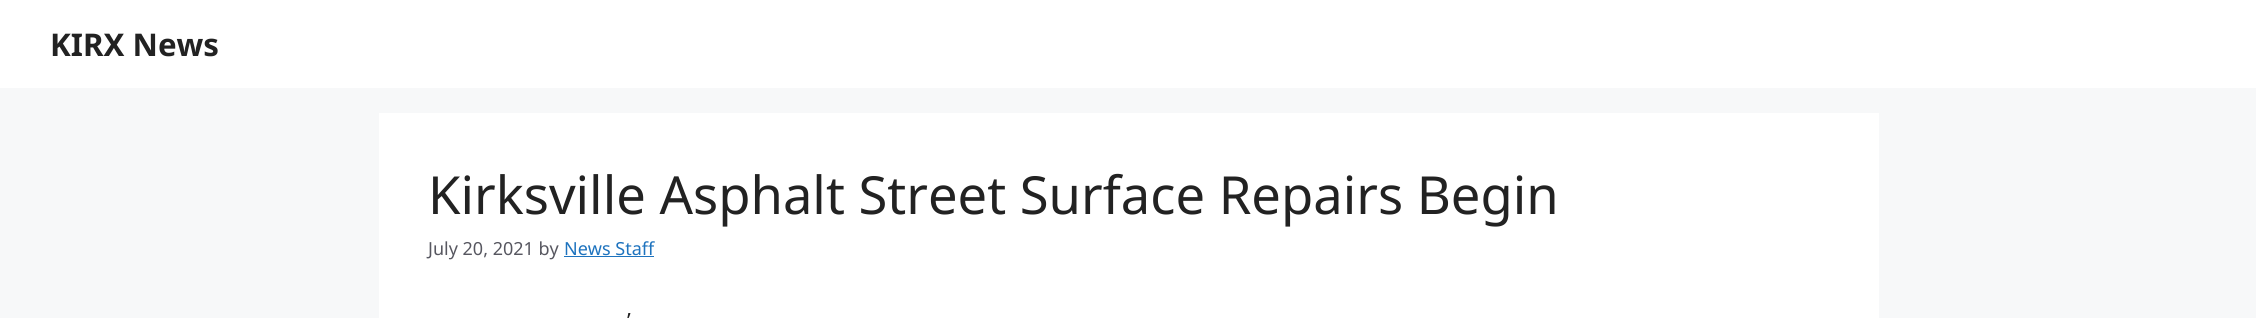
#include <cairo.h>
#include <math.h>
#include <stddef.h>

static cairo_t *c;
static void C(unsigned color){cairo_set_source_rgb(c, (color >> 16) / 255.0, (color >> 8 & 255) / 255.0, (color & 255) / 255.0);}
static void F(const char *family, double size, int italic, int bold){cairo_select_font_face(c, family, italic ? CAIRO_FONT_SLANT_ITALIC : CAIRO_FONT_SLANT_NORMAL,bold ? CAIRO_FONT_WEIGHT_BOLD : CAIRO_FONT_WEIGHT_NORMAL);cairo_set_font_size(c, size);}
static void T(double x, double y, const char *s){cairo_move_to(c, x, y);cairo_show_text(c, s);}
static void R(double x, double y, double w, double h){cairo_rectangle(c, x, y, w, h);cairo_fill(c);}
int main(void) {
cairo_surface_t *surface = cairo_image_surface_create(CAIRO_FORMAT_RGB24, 2256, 318);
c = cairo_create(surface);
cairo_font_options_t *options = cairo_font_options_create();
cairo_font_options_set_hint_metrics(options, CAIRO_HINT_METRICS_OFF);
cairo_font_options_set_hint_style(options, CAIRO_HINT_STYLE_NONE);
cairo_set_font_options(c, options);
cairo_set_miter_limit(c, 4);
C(0xf7f8f9);
cairo_paint(c);
C(0xffffff);
R(0,0,2256,88);
F("Noto Sans",31.25,0,1);
C(0x222222);
T(50,56,"KIRX News");
C(0xffffff);
R(379,113,1500,205);
F("Noto Sans",52.5,0,0);
C(0x222222);
T(428,214,"Kirksville Asphalt Street Surface Repairs Begin");
F("Noto Sans",18,0,0);
C(0x575760);
T(428,255,"July 20, 2021 by");
C(0x1e73be);
T(564,255,"News Staff");
R(564,256,90,1);
F("Noto Sans",21,0,0);
C(0x222222);
T(627,328,"’");
cairo_surface_write_to_png(surface, "o.png");
cairo_font_options_destroy(options);
cairo_destroy(c);
cairo_surface_destroy(surface);
return 0;
}
